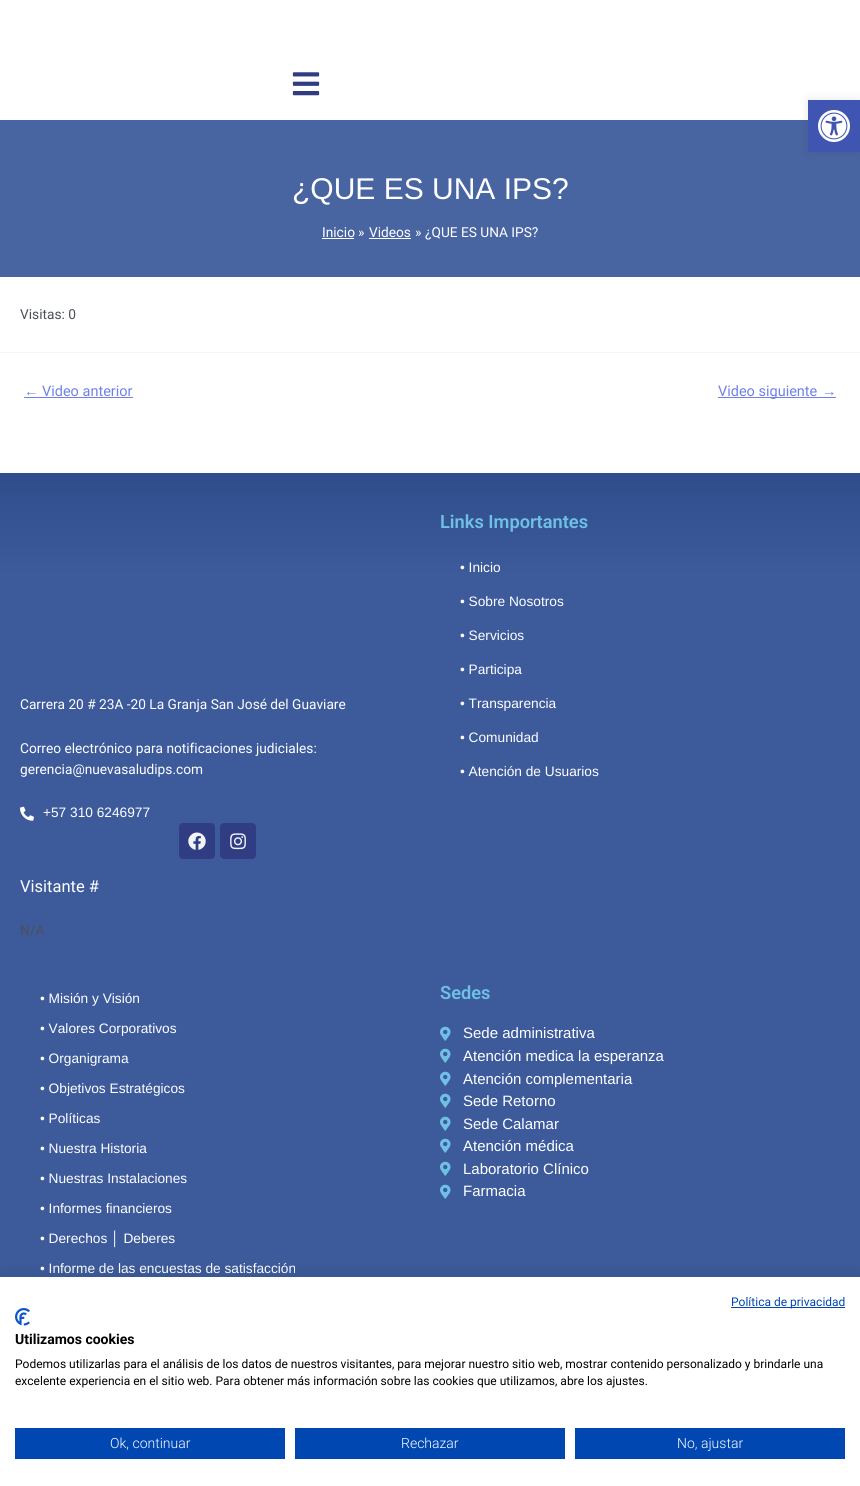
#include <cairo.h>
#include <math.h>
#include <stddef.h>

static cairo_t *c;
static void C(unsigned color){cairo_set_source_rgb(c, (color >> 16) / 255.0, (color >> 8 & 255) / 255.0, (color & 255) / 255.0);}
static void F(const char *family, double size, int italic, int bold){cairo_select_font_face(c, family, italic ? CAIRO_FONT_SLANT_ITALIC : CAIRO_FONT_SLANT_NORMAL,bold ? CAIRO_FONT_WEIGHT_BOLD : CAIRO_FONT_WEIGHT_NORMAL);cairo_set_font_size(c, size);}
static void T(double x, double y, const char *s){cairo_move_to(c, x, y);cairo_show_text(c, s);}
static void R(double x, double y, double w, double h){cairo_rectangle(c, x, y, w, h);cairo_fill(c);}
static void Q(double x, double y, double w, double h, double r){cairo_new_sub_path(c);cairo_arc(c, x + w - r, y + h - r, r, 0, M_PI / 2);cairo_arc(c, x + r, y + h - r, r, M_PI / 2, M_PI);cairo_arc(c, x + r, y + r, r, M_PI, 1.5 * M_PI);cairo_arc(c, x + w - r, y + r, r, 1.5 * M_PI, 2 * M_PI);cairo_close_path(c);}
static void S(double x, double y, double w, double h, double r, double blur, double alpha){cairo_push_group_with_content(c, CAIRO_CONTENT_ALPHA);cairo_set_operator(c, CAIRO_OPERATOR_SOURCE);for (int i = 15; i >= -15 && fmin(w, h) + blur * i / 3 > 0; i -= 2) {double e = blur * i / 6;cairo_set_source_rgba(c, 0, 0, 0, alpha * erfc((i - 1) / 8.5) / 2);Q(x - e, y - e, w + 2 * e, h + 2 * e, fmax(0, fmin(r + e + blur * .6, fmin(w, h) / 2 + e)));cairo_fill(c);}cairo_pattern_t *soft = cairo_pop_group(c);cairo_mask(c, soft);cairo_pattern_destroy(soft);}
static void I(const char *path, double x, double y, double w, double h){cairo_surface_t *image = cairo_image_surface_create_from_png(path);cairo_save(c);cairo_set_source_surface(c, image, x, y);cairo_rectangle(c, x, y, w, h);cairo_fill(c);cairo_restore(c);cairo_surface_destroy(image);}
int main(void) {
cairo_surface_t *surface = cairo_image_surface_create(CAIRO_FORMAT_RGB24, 860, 1486);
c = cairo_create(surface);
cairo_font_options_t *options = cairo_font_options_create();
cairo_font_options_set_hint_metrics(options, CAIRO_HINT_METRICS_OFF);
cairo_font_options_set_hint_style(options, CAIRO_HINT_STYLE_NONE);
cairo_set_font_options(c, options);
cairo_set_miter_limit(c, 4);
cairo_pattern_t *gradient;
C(0xffffff);
cairo_paint(c);
C(0x4965a1);
R(0,120,860,157);
C(0x000000);
S(808,100,52,52,0,5,.1);
C(0x4054b2);
R(808,100,52,52);
I("1.png",818,110,32,32);
I("2.png",292,72,28,24);
F("Liberation Sans",30,0,0);
C(0xffffff);
T(292,199,"¿QUE ES UNA IPS?");
F("Roboto",13.7,0,0);
T(322,237,"Inicio");
R(322,238,32,1);
T(358,237,"»");
T(369,237,"Videos");
R(369,238,42,1);
T(415,237,"»");
T(425,237,"¿QUE ES UNA IPS?");
C(0x4b4f58);
T(20,319,"Visitas: 0");
C(0xf2f5f7);
R(0,352,860,1);
F("Liberation Sans",14.5,0,0);
C(0x6f81e7);
T(24,396,"←");
R(24,397,109,1);
F("Roboto",14.5,0,0);
T(42,396,"Video anterior");
R(718,397,118,1);
T(718,396,"Video siguiente");
F("Liberation Sans",14.5,0,0);
T(822,396,"→");
gradient = cairo_pattern_create_linear(430,473,430,1324);
cairo_pattern_add_color_stop_rgba(gradient,0,0.184,0.302,0.545,1);
cairo_pattern_add_color_stop_rgba(gradient,.12,0.239,0.357,0.608,1);
cairo_set_source(c,gradient);
cairo_pattern_destroy(gradient);
R(0,473,860,804);
F("Roboto SemiBold",18.25,0,0);
C(0x6ec1e4);
T(440,528,"Links Importantes");
F("Liberation Sans",13.7,0,0);
C(0xffffff);
T(460,572,"• Inicio");
T(460,606,"• Sobre Nosotros");
T(460,640,"• Servicios");
T(460,674,"• Participa");
T(460,708,"• Transparencia");
T(460,742,"• Comunidad");
T(460,776,"• Atención de Usuarios");
F("Roboto",13.7,0,0);
T(20,709,"Carrera 20 # 23A -20 La Granja San José del Guaviare");
T(20,753,"Correo electrónico para notificaciones judiciales:");
T(20,774,"gerencia@nuevasaludips.com");
I("3.png",20,806,14,15);
F("Liberation Sans",13.7,0,0);
T(43,817,"+57 310 6246977");
C(0x313d82);
Q(179,823,36,36,4);
cairo_fill(c);
I("4.png",188,832,18,18);
Q(220,823,36,36,4);
cairo_fill(c);
I("5.png",230,833,16,17);
F("Roboto",16.5,0,0);
C(0xffffff);
T(20,892,"Visitante #");
F("Roboto",13.7,0,0);
C(0x4b4f58);
T(20,935,"N/A");
F("Liberation Sans",13.7,0,0);
C(0xffffff);
T(40,1003,"• Misión y Visión");
T(40,1033,"• Valores Corporativos");
T(40,1063,"• Organigrama");
T(40,1093,"• Objetivos Estratégicos");
T(40,1123,"• Políticas");
T(40,1153,"• Nuestra Historia");
T(40,1183,"• Nuestras Instalaciones");
T(40,1213,"• Informes financieros");
T(40,1243,"• Derechos │ Deberes");
T(40,1273,"• Informe de las encuestas de satisfacción");
F("Roboto SemiBold",18.25,0,0);
C(0x6ec1e4);
T(440,999,"Sedes");
I("6.png",440,1026,11,15);
F("Liberation Sans",15,0,0);
C(0xffffff);
T(463,1038,"Sede administrativa");
I("6.png",440,1048,11,15);
T(463,1061,"Atención medica la esperanza");
I("6.png",440,1071,11,15);
T(463,1084,"Atención complementaria");
I("6.png",440,1093,11,15);
T(463,1106,"Sede Retorno");
I("6.png",440,1116,11,15);
T(463,1129,"Sede Calamar");
I("6.png",440,1138,11,15);
T(463,1151,"Atención médica");
I("6.png",440,1161,11,15);
T(463,1174,"Laboratorio Clínico");
I("6.png",440,1184,11,15);
T(463,1196,"Farmacia");
C(0x000000);
S(0,1277,860,209,0,12,.1);
C(0xffffff);
R(0,1277,860,209);
C(0x0047b2);
R(731,1307,114,1);
F("Roboto",12,0,0);
T(731,1306,"Política de privacidad");
I("7.png",15,1308,15,18);
F("Roboto",14,0,1);
C(0x000000);
T(15,1344,"Utilizamos cookies");
F("Roboto",12,0,0);
T(15,1368,"Podemos utilizarlas para el análisis de los datos de nuestros visitantes, para mejorar nuestro sitio web, mostrar contenido personalizado y brindarle una");
T(15,1385,"excelente experiencia en el sitio web. Para obtener más información sobre las cookies que utilizamos, abre los ajustes.");
C(0x0047b2);
R(15,1428,270,31);
F("Roboto Light",14,0,0);
C(0xffffff);
T(110,1448,"Ok, continuar");
C(0x0047b2);
R(295,1428,270,31);
C(0xffffff);
T(401,1448,"Rechazar");
C(0x0047b2);
R(575,1428,270,31);
C(0xffffff);
T(677,1448,"No, ajustar");
cairo_surface_write_to_png(surface, "o.png");
cairo_font_options_destroy(options);
cairo_destroy(c);
cairo_surface_destroy(surface);
return 0;
}
